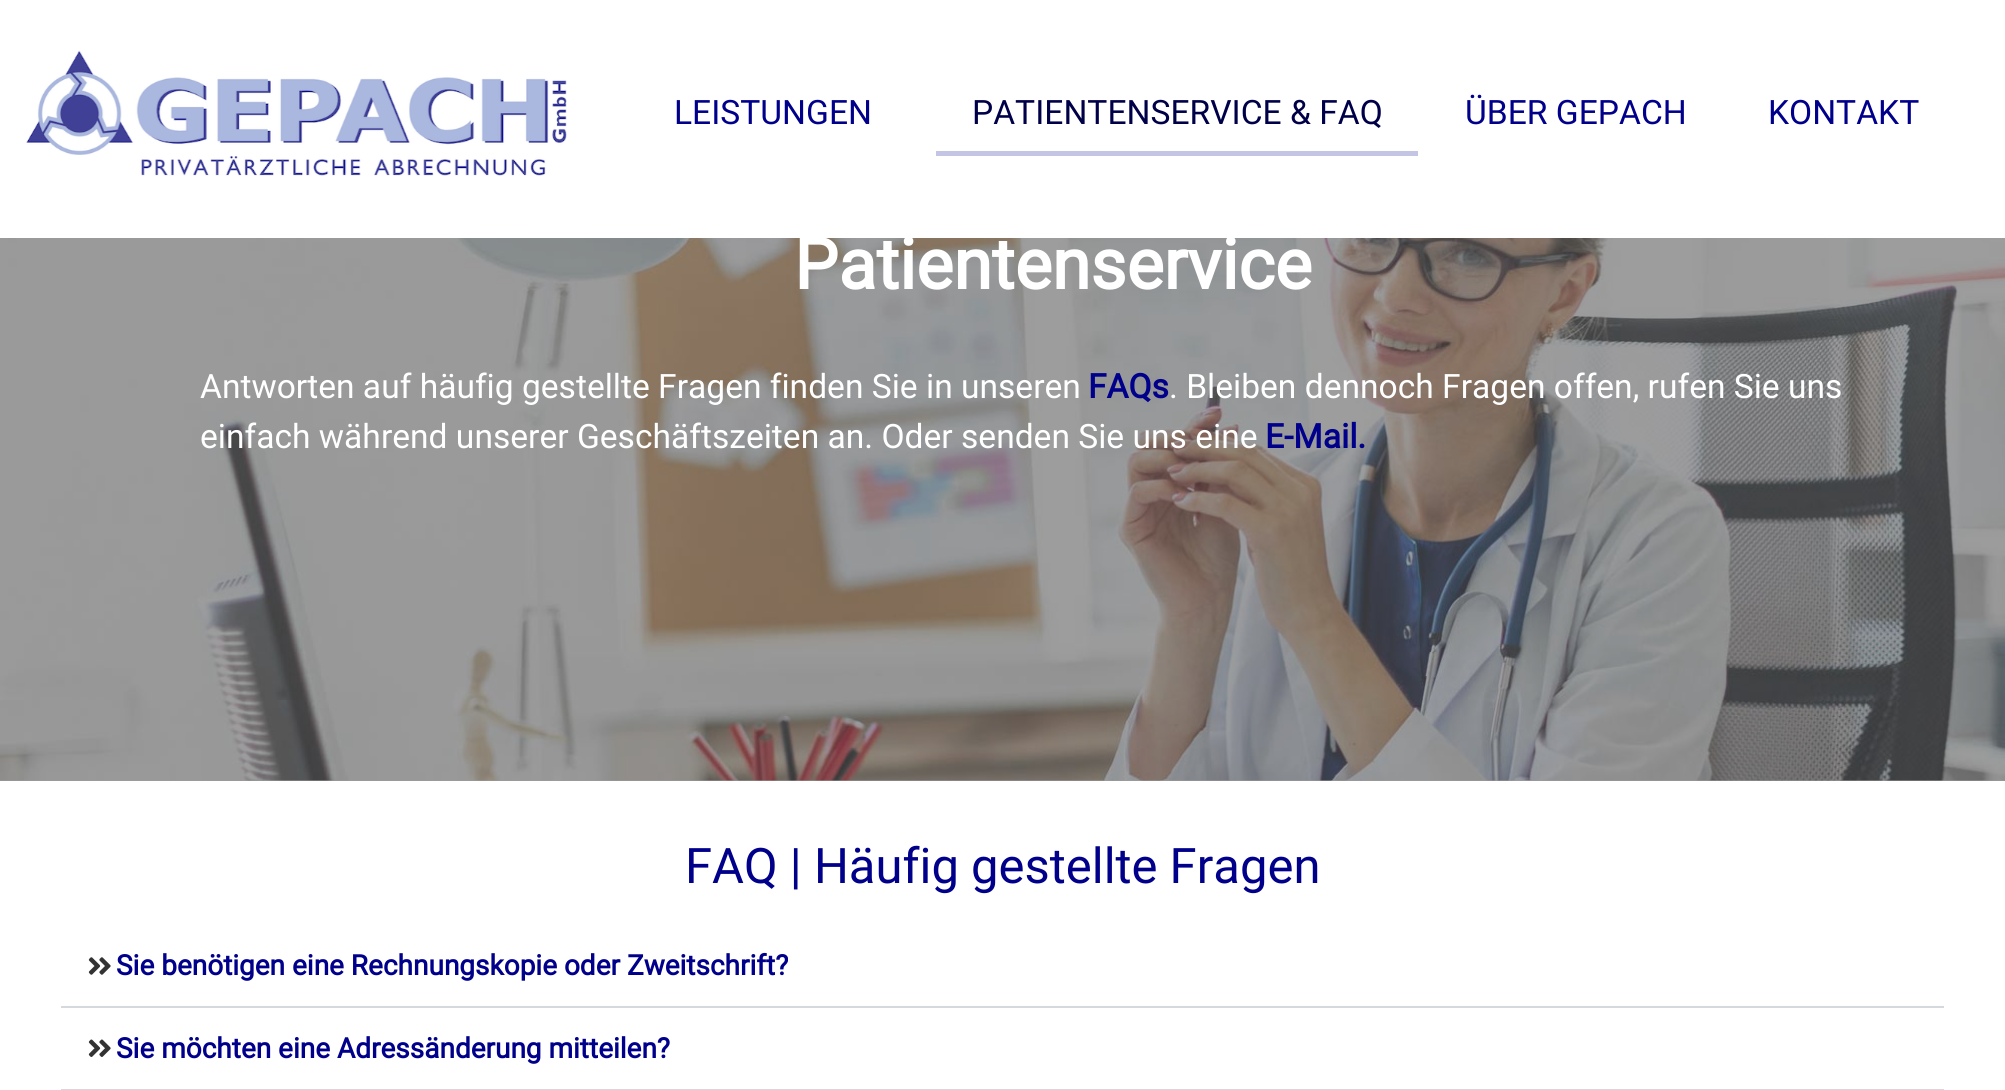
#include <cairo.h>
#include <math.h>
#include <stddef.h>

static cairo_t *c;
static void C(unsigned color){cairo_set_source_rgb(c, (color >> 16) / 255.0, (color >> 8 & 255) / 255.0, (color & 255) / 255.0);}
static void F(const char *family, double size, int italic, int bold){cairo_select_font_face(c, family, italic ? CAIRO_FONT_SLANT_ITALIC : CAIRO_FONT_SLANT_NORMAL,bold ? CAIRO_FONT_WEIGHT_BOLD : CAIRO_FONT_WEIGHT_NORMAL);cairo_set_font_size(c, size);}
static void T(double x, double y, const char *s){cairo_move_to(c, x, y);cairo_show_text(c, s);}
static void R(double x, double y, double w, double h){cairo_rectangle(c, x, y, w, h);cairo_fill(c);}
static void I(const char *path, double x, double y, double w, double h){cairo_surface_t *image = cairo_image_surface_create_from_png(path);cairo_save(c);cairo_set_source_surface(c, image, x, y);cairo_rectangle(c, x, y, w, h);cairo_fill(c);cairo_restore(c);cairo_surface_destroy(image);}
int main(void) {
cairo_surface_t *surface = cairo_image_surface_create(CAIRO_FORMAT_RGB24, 2005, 1090);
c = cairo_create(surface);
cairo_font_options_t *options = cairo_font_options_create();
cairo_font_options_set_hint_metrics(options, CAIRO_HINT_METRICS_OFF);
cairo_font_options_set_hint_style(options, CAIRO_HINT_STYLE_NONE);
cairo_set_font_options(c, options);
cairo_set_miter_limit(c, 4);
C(0xffffff);
cairo_paint(c);
C(0x9d9d9d);
R(0,780,2005,1);
I("1.png",26,50,541,126);
F("Roboto",33.6,0,0);
C(0x00008b);
T(674,124,"LEISTUNGEN");
C(0x000049);
T(972,124,"PATIENTENSERVICE & FAQ");
C(0xc4c4e4);
R(936,151,482,5);
C(0x00008b);
T(1465,124,"ÜBER GEPACH");
T(1768,124,"KONTAKT");
I("2.png",0,238,2005,543);
F("Roboto",70,0,1);
C(0xffffff);
T(794,289,"Patientenservice");
F("Roboto",33.6,0,0);
T(200,398,"Antworten auf häufig gestellte Fragen finden Sie in unseren");
F("Roboto",33.6,0,1);
C(0x00008b);
T(1088,398,"FAQs");
F("Roboto",33.6,0,0);
C(0xffffff);
T(1169,398,". Bleiben dennoch Fragen offen, rufen Sie uns");
T(200,448,"einfach während unserer Geschäftszeiten an. Oder senden Sie uns eine");
F("Roboto",33.6,0,1);
C(0x00008b);
T(1265,448,"E-Mail.");
F("Roboto",49,0,0);
T(685,883,"FAQ | Häufig gestellte Fragen");
C(0xd5d8dc);
R(61,1006,1883,2);
I("3.png",88,957,23,18);
F("Roboto",28,0,1);
C(0x00008b);
T(116,975,"Sie benötigen eine Rechnungskopie oder Zweitschrift?");
C(0xd5d8dc);
R(61,1089,1883,1);
I("4.png",88,1039,23,18);
C(0x00008b);
T(116,1058,"Sie möchten eine Adressänderung mitteilen?");
cairo_surface_write_to_png(surface, "o.png");
cairo_font_options_destroy(options);
cairo_destroy(c);
cairo_surface_destroy(surface);
return 0;
}
